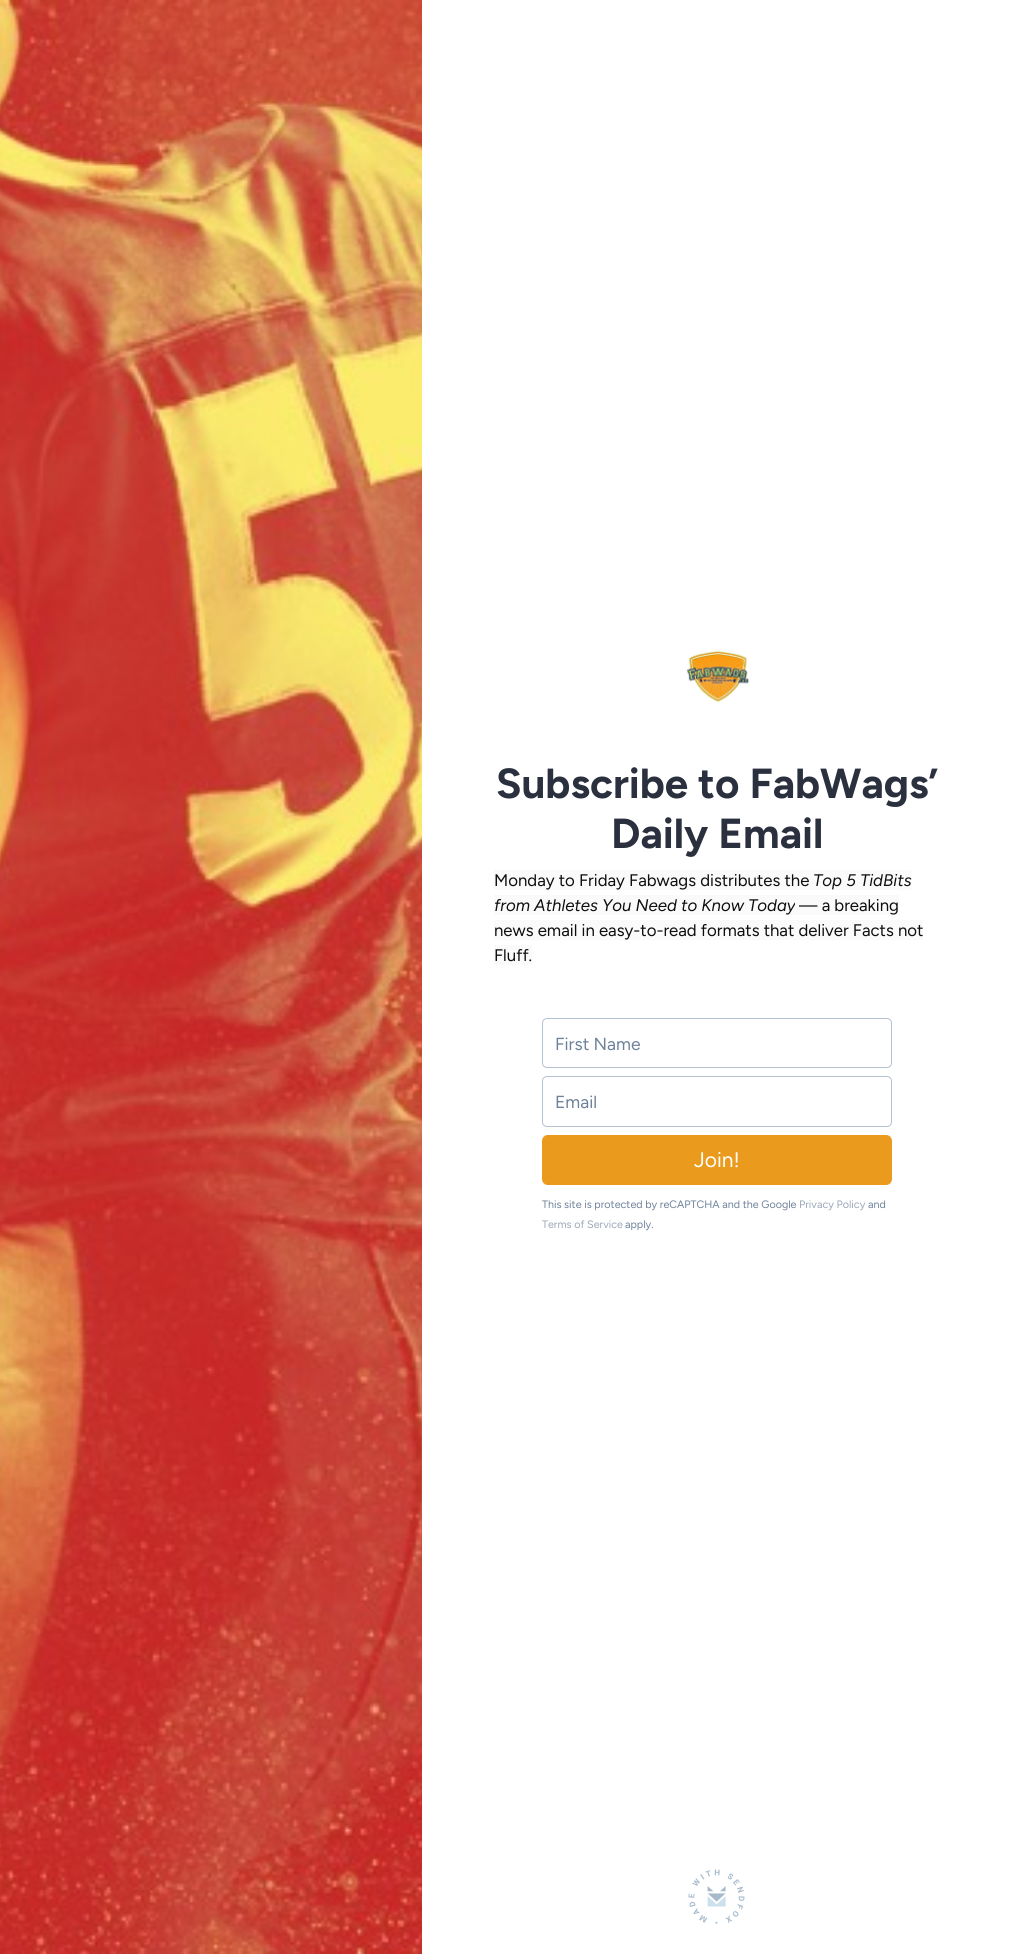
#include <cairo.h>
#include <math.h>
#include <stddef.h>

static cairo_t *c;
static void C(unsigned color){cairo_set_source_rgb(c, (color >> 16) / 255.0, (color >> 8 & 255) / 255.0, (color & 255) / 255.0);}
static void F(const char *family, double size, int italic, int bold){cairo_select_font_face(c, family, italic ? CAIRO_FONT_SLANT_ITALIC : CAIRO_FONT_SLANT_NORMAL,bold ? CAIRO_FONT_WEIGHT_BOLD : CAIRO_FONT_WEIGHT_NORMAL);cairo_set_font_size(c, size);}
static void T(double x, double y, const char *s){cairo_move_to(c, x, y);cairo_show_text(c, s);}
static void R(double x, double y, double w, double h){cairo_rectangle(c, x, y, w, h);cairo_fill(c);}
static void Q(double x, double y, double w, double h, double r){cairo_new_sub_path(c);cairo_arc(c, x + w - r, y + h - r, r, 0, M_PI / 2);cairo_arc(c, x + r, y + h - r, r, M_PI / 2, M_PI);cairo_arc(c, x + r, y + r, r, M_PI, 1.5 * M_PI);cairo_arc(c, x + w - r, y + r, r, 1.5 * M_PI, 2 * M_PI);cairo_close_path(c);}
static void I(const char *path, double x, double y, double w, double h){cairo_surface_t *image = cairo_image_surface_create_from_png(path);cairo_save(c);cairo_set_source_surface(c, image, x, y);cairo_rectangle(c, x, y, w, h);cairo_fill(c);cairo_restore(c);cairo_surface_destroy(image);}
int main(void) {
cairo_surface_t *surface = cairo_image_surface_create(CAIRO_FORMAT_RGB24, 1012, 1954);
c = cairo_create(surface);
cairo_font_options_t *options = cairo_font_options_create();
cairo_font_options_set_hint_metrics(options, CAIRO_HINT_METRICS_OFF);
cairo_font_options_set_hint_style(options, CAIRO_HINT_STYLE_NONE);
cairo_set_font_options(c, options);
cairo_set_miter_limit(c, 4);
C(0xffffff);
cairo_paint(c);
I("1.png",0,0,422,1954);
I("2.png",686,650,64,53);
F("Figtree",42,0,1);
C(0x2b303f);
T(496,798,"Subscribe to FabWags’");
T(611,848,"Daily Email");
C(0xfafafa);
R(494,870,417,20);
F("Figtree",16.8,0,0);
C(0x0e0e0e);
T(494,886,"Monday to Friday Fabwags distributes the");
F("Figtree",16.8,1,0);
T(813,886,"Top 5 TidBits");
C(0xfafafa);
R(494,895,301,20);
C(0x0e0e0e);
T(494,911,"from Athletes You Need to Know Today");
C(0xfafafa);
R(795,895,104,20);
F("Figtree",16.8,0,0);
C(0x0e0e0e);
T(799,911,"— a breaking");
C(0xfafafa);
R(494,920,429,20);
C(0x0e0e0e);
T(494,936,"news email in easy-to-read formats that deliver Facts not");
C(0xfafafa);
R(494,945,38,20);
C(0x0e0e0e);
T(494,961,"Fluff.");
Q(542.5,1018.5,349,49,4.5);
C(0xb4c2d3);
cairo_set_line_width(c,1);
cairo_stroke(c);
F("Figtree",17.5,0,0);
C(0x6e819a);
T(555,1050,"First Name");
Q(542.5,1076.5,349,50,4.5);
C(0xb4c2d3);
cairo_stroke(c);
C(0x6e819a);
T(555,1108,"Email");
C(0xea9a1d);
Q(542.5,1135.5,349,49,5.5);
cairo_fill_preserve(c);
cairo_stroke(c);
F("Figtree",21,0,0);
C(0xffffff);
T(694,1167,"Join!");
F("Figtree",10.75,0,0);
C(0x6e819a);
T(542,1208,"This site is protected by reCAPTCHA and the Google");
C(0x9aa7b8);
T(799,1208,"Privacy Policy");
C(0x6e819a);
T(868,1208,"and");
C(0x9aa7b8);
T(542,1228,"Terms of Service");
C(0x6e819a);
T(625,1228,"apply.");
I("3.png",688,1869,57,55);
cairo_surface_write_to_png(surface, "o.png");
cairo_font_options_destroy(options);
cairo_destroy(c);
cairo_surface_destroy(surface);
return 0;
}
